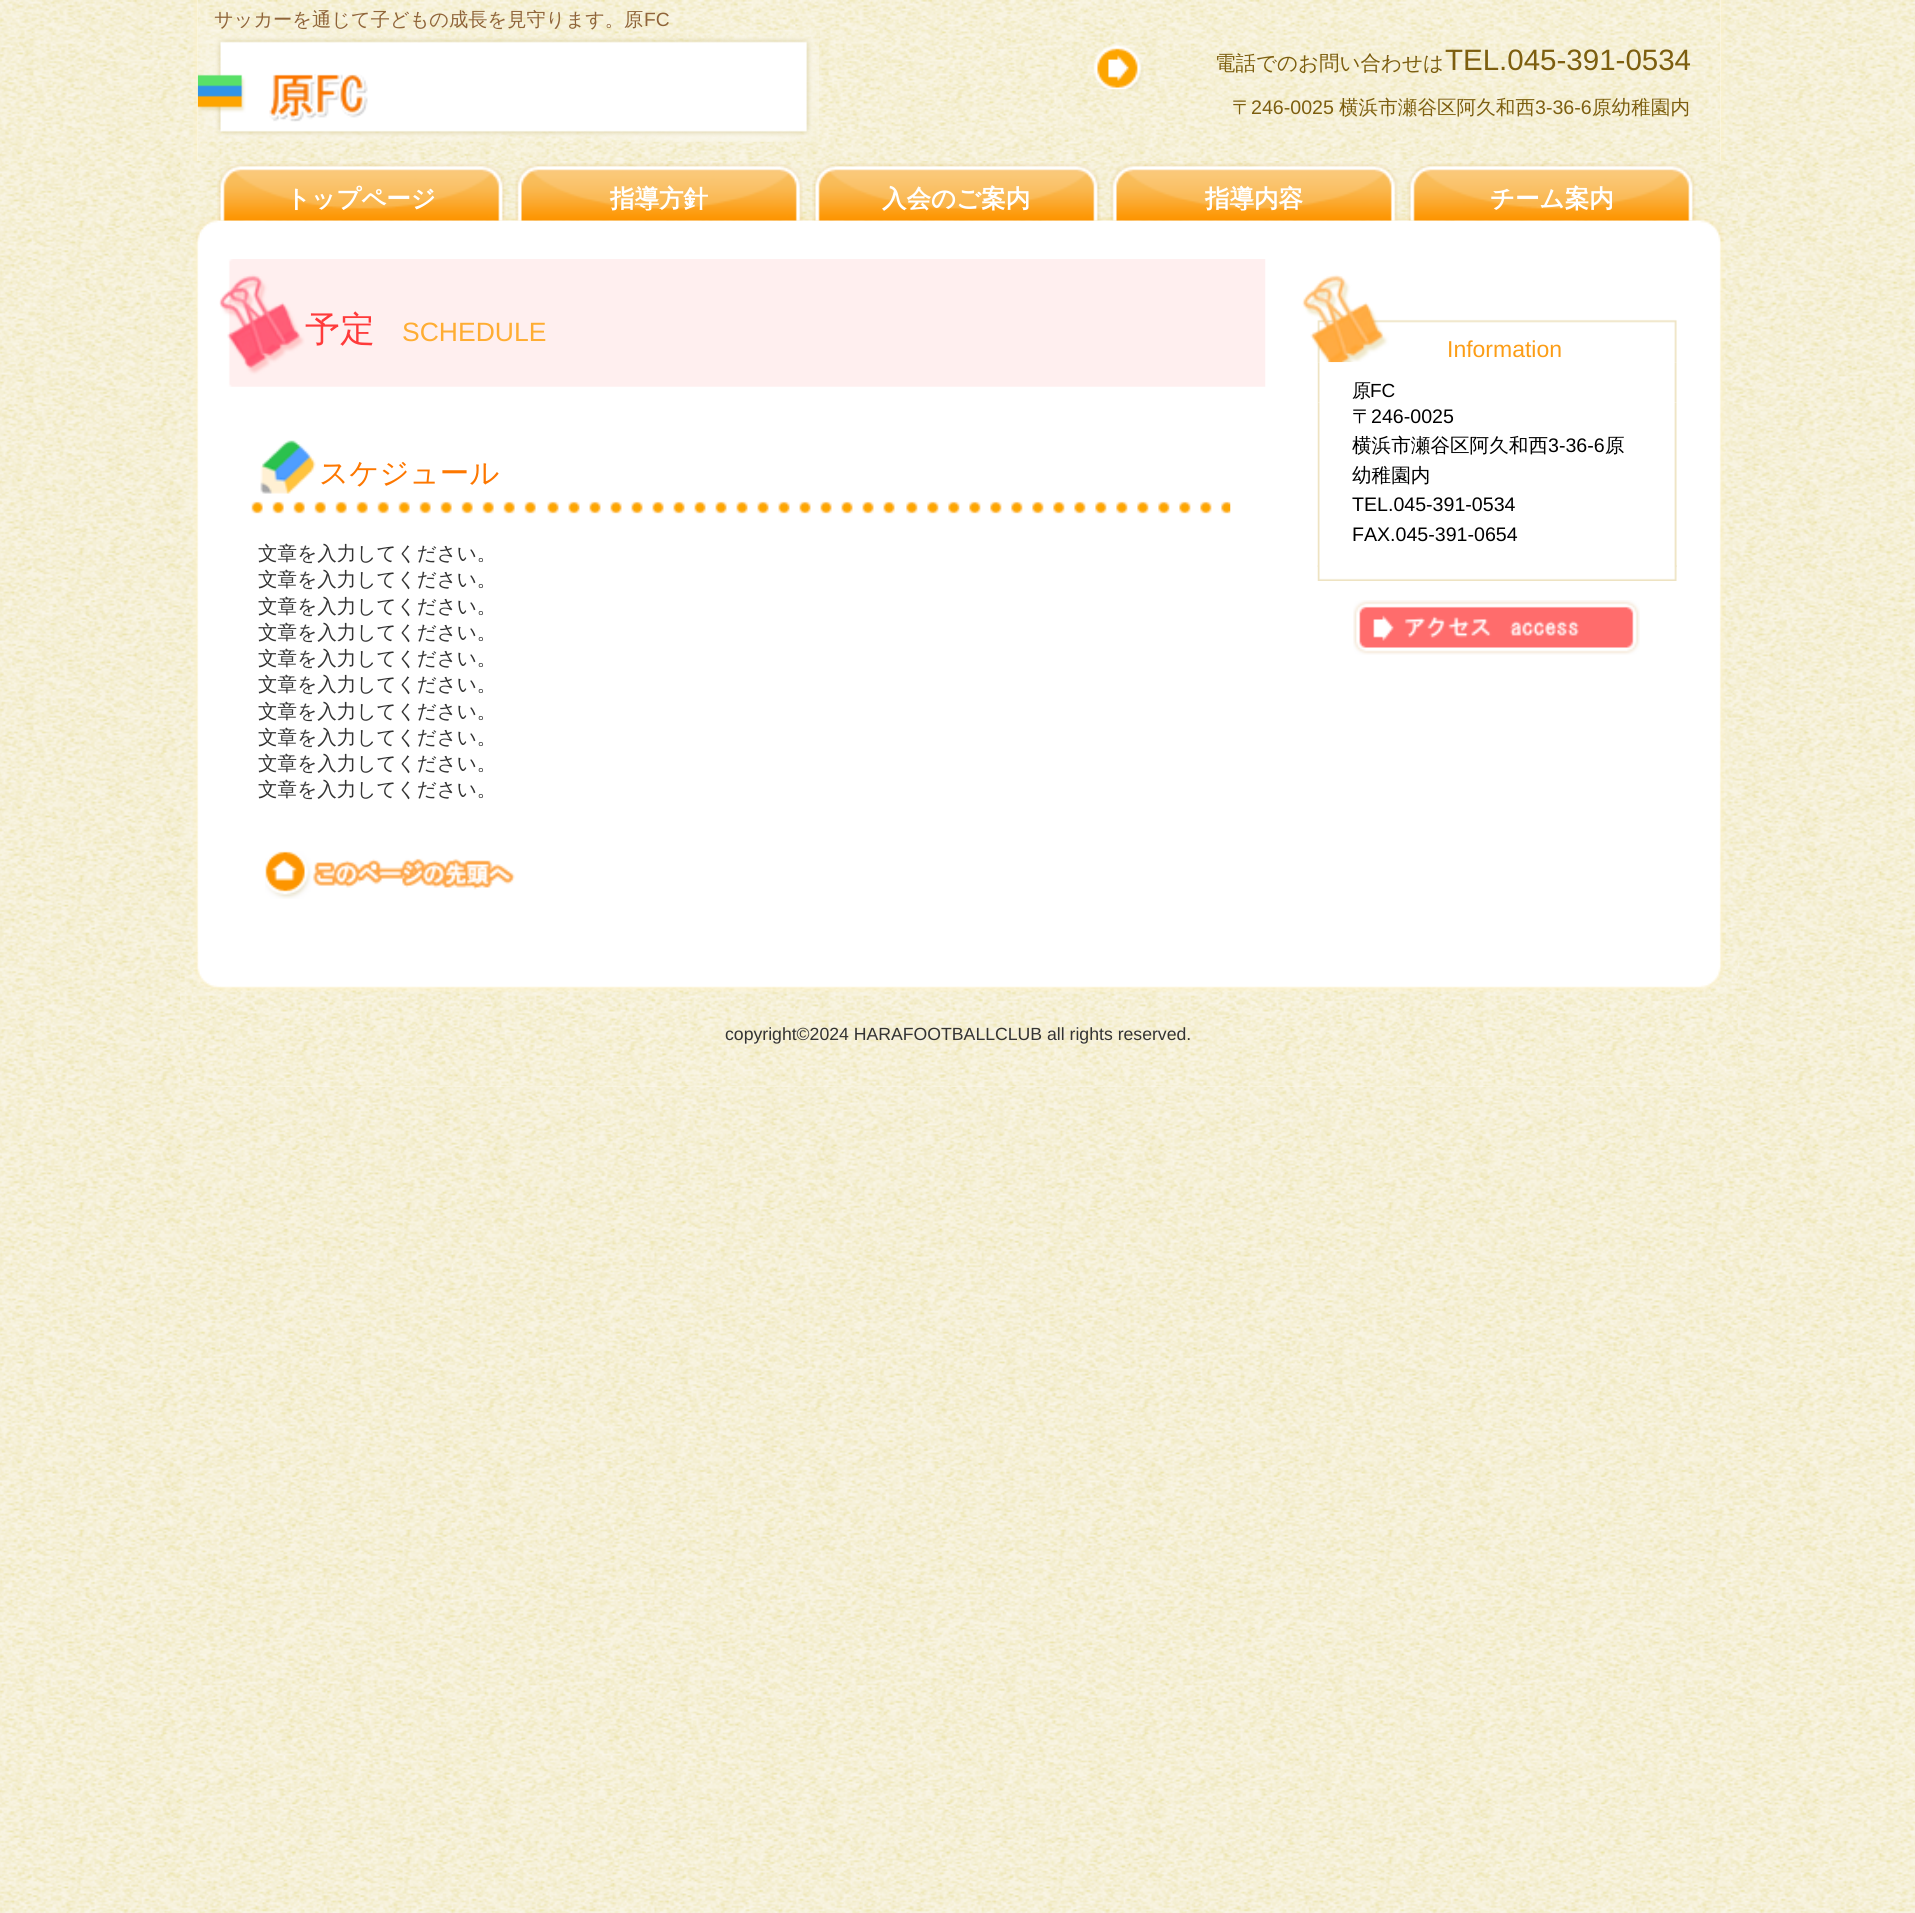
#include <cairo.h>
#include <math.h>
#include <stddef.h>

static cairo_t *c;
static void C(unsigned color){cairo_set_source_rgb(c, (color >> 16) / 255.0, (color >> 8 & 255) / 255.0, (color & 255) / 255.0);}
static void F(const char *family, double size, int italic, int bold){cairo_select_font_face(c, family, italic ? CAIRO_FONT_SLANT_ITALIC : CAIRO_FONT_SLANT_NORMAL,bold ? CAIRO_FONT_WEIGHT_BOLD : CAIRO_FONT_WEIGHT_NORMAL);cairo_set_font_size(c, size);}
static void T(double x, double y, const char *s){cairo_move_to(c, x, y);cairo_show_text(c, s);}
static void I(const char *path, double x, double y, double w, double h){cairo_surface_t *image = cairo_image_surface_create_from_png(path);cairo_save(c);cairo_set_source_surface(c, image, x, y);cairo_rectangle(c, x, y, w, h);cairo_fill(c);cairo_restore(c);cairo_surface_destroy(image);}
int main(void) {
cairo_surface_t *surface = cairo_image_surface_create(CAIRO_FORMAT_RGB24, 1915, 1913);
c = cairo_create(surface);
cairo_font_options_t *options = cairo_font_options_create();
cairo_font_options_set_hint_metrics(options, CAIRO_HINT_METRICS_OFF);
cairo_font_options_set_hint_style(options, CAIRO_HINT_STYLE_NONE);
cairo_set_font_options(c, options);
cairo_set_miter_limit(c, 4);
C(0xffffff);
cairo_paint(c);
I("1.png",0,0,1915,1913);
I("2.png",193,0,1532,1087);
I("3.png",197,0,1524,161);
F("WenQuanYi Zen Hei Medium",19.25,0,0);
C(0x8f6439);
T(214,26,"サッカーを通じて子どもの成長を見守ります。原");
F("Liberation Sans",19.25,0,0);
T(644,26,"FC");
I("4.png",197,30,622,112);
I("5.png",269,74,99,48);
I("6.png",1093,45,51,45);
F("WenQuanYi Zen Hei Medium",20.5,0,0);
C(0x7c5e0f);
T(1215,70,"電話でのお問い合わせは");
F("Liberation Sans",29.5,0,0);
T(1445,70,"TEL.045-391-0534");
F("WenQuanYi Zen Hei Medium",19.6,0,0);
T(1232,114,"〒");
F("Liberation Sans",19.6,0,0);
T(1251,114,"246-0025");
F("WenQuanYi Zen Hei Medium",19.6,0,0);
T(1339,114,"横浜市瀬谷区阿久和西");
F("Liberation Sans",19.6,0,0);
T(1535,114,"3-36-6");
F("WenQuanYi Zen Hei Medium",19.6,0,0);
T(1592,114,"原幼稚園内");
I("7.png",180,161,1558,81);
I("8.png",217,163,289,58);
F("WenQuanYi Zen Hei",24.5,0,1);
C(0xffffff);
T(286,207,"トップページ");
I("9.png",515,163,288,58);
T(610,207,"指導方針");
I("10.png",812,163,289,58);
T(882,207,"入会のご案内");
I("11.png",1110,163,288,58);
T(1205,207,"指導内容");
I("12.png",1407,163,289,58);
T(1490,207,"チーム案内");
I("13.png",219,259,1047,128);
F("WenQuanYi Zen Hei Medium",35,0,0);
C(0xff3a3a);
T(305,341,"予定");
F("Liberation Sans",26.5,0,0);
C(0xffad33);
T(402,341,"SCHEDULE");
I("14.png",251,440,980,74);
F("WenQuanYi Zen Hei Medium",29.5,0,0);
C(0xfd7700);
T(319,483,"スケジュール");
F("WenQuanYi Zen Hei Medium",19.6,0,0);
C(0x333333);
T(258,560,"文章を入力してください。");
T(258,586,"文章を入力してください。");
T(258,613,"文章を入力してください。");
T(258,639,"文章を入力してください。");
T(258,665,"文章を入力してください。");
T(258,691,"文章を入力してください。");
T(258,718,"文章を入力してください。");
T(258,744,"文章を入力してください。");
T(258,770,"文章を入力してください。");
T(258,796,"文章を入力してください。");
I("15.png",265,851,250,48);
I("16.png",1317,565,360,16);
I("17.png",1302,274,375,89);
F("Liberation Sans",23,0,0);
C(0xfc9d16);
T(1447,357,"Information");
I("18.png",1317,362,360,41);
F("WenQuanYi Zen Hei Medium",19,0,0);
C(0x000000);
T(1352,397,"原");
F("Liberation Sans",19,0,0);
T(1370,397,"FC");
I("19.png",1317,402,360,165);
F("WenQuanYi Zen Hei Medium",19.6,0,0);
T(1352,423,"〒");
F("Liberation Sans",19.6,0,0);
T(1371,423,"246-0025");
F("WenQuanYi Zen Hei Medium",19.6,0,0);
T(1352,452,"横浜市瀬谷区阿久和西");
F("Liberation Sans",19.6,0,0);
T(1548,452,"3-36-6");
F("WenQuanYi Zen Hei Medium",19.6,0,0);
T(1605,452,"原");
T(1352,482,"幼稚園内");
F("Liberation Sans",19.6,0,0);
T(1352,511,"TEL.045-391-0534");
T(1352,541,"FAX.045-391-0654");
I("20.png",1353,600,287,55);
I("21.png",180,952,1558,135);
I("22.png",194,952,1531,40);
F("Liberation Sans",17.65,0,0);
C(0x333333);
T(725,1040,"copyright©2024 HARAFOOTBALLCLUB all rights reserved.");
cairo_surface_write_to_png(surface, "o.png");
cairo_font_options_destroy(options);
cairo_destroy(c);
cairo_surface_destroy(surface);
return 0;
}
